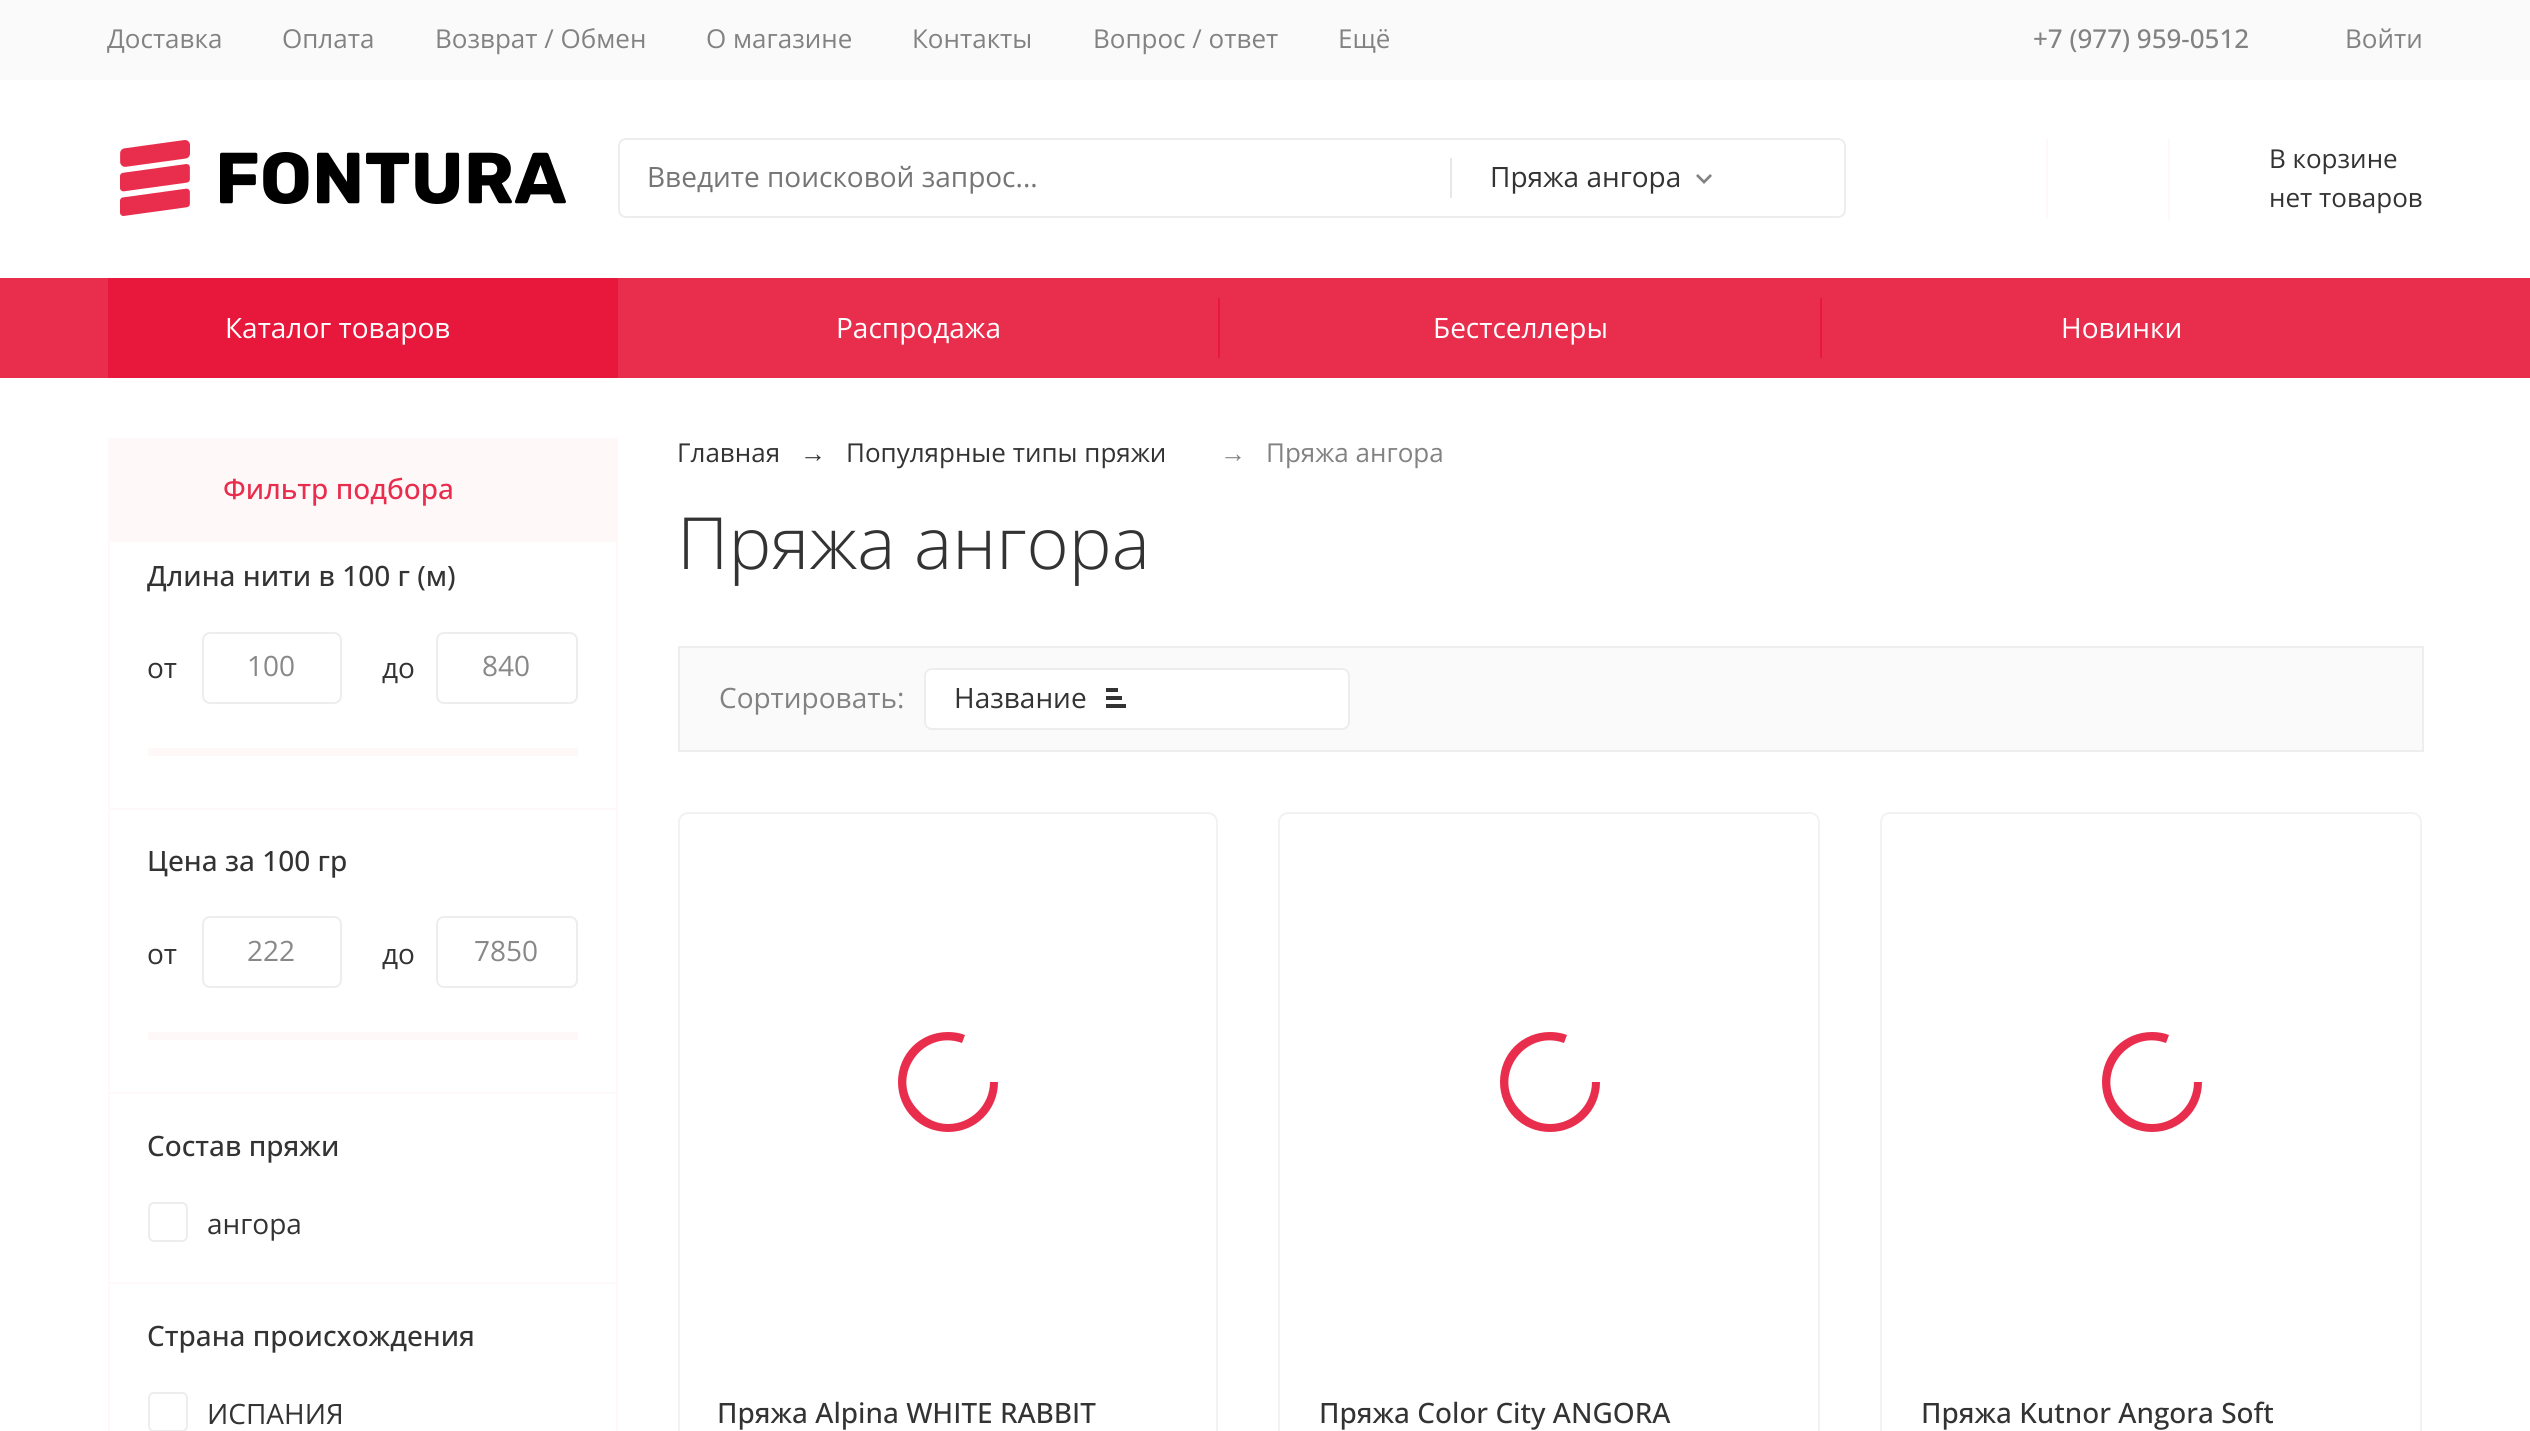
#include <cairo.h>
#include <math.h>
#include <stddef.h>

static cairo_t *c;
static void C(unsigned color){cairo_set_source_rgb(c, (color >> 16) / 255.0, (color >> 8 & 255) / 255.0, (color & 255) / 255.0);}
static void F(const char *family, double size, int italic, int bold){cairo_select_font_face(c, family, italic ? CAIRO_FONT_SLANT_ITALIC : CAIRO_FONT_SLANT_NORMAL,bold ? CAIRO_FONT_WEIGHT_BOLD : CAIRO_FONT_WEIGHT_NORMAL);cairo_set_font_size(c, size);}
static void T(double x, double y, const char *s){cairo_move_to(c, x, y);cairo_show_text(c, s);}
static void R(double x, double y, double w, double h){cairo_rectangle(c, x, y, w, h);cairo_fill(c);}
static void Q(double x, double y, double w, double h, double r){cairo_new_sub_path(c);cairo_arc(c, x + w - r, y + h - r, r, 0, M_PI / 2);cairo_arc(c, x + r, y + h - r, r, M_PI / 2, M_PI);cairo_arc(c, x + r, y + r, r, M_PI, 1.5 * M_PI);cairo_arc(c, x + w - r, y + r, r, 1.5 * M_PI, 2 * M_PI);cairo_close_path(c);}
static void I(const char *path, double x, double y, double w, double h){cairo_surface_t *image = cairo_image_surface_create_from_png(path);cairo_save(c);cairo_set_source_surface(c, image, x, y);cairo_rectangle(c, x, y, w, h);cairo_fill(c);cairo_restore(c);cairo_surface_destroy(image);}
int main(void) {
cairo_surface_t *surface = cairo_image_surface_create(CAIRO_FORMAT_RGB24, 2530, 1431);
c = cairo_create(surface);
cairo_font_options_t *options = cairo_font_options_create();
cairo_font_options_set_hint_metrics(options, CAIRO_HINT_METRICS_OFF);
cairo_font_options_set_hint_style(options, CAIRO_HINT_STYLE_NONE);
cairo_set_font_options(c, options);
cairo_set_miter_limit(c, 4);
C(0xffffff);
cairo_paint(c);
C(0xfafafa);
R(0,0,2530,80);
F("Open Sans",26,0,0);
C(0x828282);
T(107,48,"Доставка");
T(282,48,"Оплата");
T(435,48,"Возврат / Обмен");
T(706,48,"О магазине");
T(912,48,"Контакты");
T(1093,48,"Вопрос / ответ");
T(1338,48,"Ещё");
F("Open Sans Medium",26,0,0);
T(2033,48,"+7 (977) 959-0512");
F("Open Sans",26,0,0);
T(2345,48,"Войти");
I("1.png",120,140,446,76);
Q(619,139,1226,78,7);
C(0xededed);
cairo_stroke(c);
F("Open Sans",28,0,0);
C(0x757575);
T(647,187,"Введите поисковой запрос...");
C(0xe7e7e7);
R(1450,158,2,40);
C(0x333333);
T(1490,187,"Пряжа ангора");
I("2.png",1696,174,16,10);
C(0xfff8f9);
R(2046,138,2,80);
R(2168,138,2,82);
F("Open Sans",26,0,0);
C(0x333333);
T(2269,168,"В корзине");
T(2269,207,"нет товаров");
C(0xe92e4d);
R(0,278,2530,100);
C(0xe7183b);
R(108,278,510,100);
F("Open Sans",28,0,0);
C(0xffffff);
T(225,338,"Каталог товаров");
T(836,338,"Распродажа");
C(0xe7183b);
R(1218,298,2,60);
C(0xffffff);
T(1433,338,"Бестселлеры");
C(0xe7183b);
R(1820,298,2,60);
C(0xffffff);
T(2061,338,"Новинки");
C(0xfff8f9);
R(108,438,510,104);
F("Open Sans Medium",28,0,0);
C(0xe92e4d);
T(223,499,"Фильтр подбора");
C(0xfff8f9);
R(616,542,2,889);
R(108,542,2,889);
R(110,808,506,2);
C(0x333333);
T(147,586,"Длина нити в 100 г (м)");
F("Open Sans",28,0,0);
T(147,678,"от");
Q(203,633,138,70,7);
C(0xededed);
cairo_stroke(c);
C(0x888888);
T(247,676,"100");
C(0x333333);
T(382,678,"до");
Q(437,633,140,70,7);
C(0xededed);
cairo_stroke(c);
C(0x888888);
T(482,676,"840");
C(0xfff8f9);
R(148,748,430,8);
R(110,1092,506,2);
F("Open Sans Medium",28,0,0);
C(0x333333);
T(147,871,"Цена за 100 гр");
F("Open Sans",28,0,0);
T(147,964,"от");
Q(203,917,138,70,7);
C(0xededed);
cairo_stroke(c);
C(0x888888);
T(247,961,"222");
C(0x333333);
T(382,964,"до");
Q(437,917,140,70,7);
C(0xededed);
cairo_stroke(c);
C(0x888888);
T(474,961,"7850");
C(0xfff8f9);
R(148,1032,430,8);
R(110,1282,506,2);
F("Open Sans Medium",28,0,0);
C(0x333333);
T(147,1156,"Состав пряжи");
Q(149,1203,38,38,5);
C(0xededed);
cairo_stroke(c);
F("Open Sans",28,0,0);
C(0x333333);
T(207,1234,"ангора");
F("Open Sans Medium",28,0,0);
T(147,1346,"Страна происхождения");
Q(149,1393,38,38,5);
C(0xededed);
cairo_stroke(c);
F("Open Sans",28,0,0);
C(0x333333);
T(207,1424,"ИСПАНИЯ");
F("Open Sans",26,0,0);
T(677,462,"Главная");
F("Liberation Sans",26,0,0);
T(800,462,"→");
F("Open Sans",26,0,0);
T(846,462,"Популярные типы пряжи");
F("Liberation Sans",26,0,0);
C(0x828282);
T(1220,462,"→");
F("Open Sans",26,0,0);
T(1266,462,"Пряжа ангора");
F("Open Sans Light",72,0,0);
C(0x333333);
T(677,569,"Пряжа ангора");
C(0xfafafa);
cairo_rectangle(c,679,647,1744,104);
cairo_fill_preserve(c);
C(0xeeeeee);
cairo_stroke(c);
F("Open Sans",28,0,0);
C(0x828282);
T(719,708,"Сортировать:");
C(0xffffff);
Q(925,669,424,60,7);
cairo_fill_preserve(c);
C(0xededed);
cairo_stroke(c);
C(0x333333);
T(954,708,"Название");
I("3.png",1106,688,20,20);
Q(679,813,538,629,9);
C(0xf2f2f2);
cairo_stroke(c);
C(0xe92e4d);
cairo_new_path(c);
cairo_move_to(c,948,1124);
cairo_curve_to(c,937,1124,926,1119,919,1111);
cairo_curve_to(c,887,1080,921,1028,962,1043);
cairo_line_to(c,965,1035);
cairo_curve_to(c,960,1033,954,1032,948,1032);
cairo_curve_to(c,920,1032,898,1054,898,1082);
cairo_curve_to(c,898,1110,920,1132,948,1132);
cairo_curve_to(c,976,1132,998,1110,998,1082);
cairo_line_to(c,990,1082);
cairo_curve_to(c,990,1105,971,1124,948,1124);
cairo_close_path(c);
cairo_fill(c);
F("Open Sans Medium",28,0,0);
C(0x333333);
T(717,1423,"Пряжа Alpina WHITE RABBIT");
Q(1279,813,540,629,9);
C(0xf2f2f2);
cairo_stroke(c);
C(0xe92e4d);
cairo_new_path(c);
cairo_move_to(c,1550,1124);
cairo_curve_to(c,1539,1124,1528,1119,1521,1111);
cairo_curve_to(c,1489,1080,1523,1028,1564,1043);
cairo_line_to(c,1567,1035);
cairo_curve_to(c,1562,1033,1556,1032,1550,1032);
cairo_curve_to(c,1522,1032,1500,1054,1500,1082);
cairo_curve_to(c,1500,1110,1522,1132,1550,1132);
cairo_curve_to(c,1578,1132,1600,1110,1600,1082);
cairo_line_to(c,1592,1082);
cairo_curve_to(c,1592,1105,1573,1124,1550,1124);
cairo_close_path(c);
cairo_fill(c);
C(0x333333);
T(1319,1423,"Пряжа Color City ANGORA");
Q(1881,813,540,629,9);
C(0xf2f2f2);
cairo_stroke(c);
C(0xe92e4d);
cairo_new_path(c);
cairo_move_to(c,2152,1124);
cairo_curve_to(c,2141,1124,2130,1119,2123,1111);
cairo_curve_to(c,2091,1080,2125,1028,2166,1043);
cairo_line_to(c,2169,1035);
cairo_curve_to(c,2164,1033,2158,1032,2152,1032);
cairo_curve_to(c,2124,1032,2102,1054,2102,1082);
cairo_curve_to(c,2102,1110,2124,1132,2152,1132);
cairo_curve_to(c,2180,1132,2202,1110,2202,1082);
cairo_line_to(c,2194,1082);
cairo_curve_to(c,2194,1105,2175,1124,2152,1124);
cairo_close_path(c);
cairo_fill(c);
C(0x333333);
T(1921,1423,"Пряжа Kutnor Angora Soft");
cairo_surface_write_to_png(surface, "o.png");
cairo_font_options_destroy(options);
cairo_destroy(c);
cairo_surface_destroy(surface);
return 0;
}
